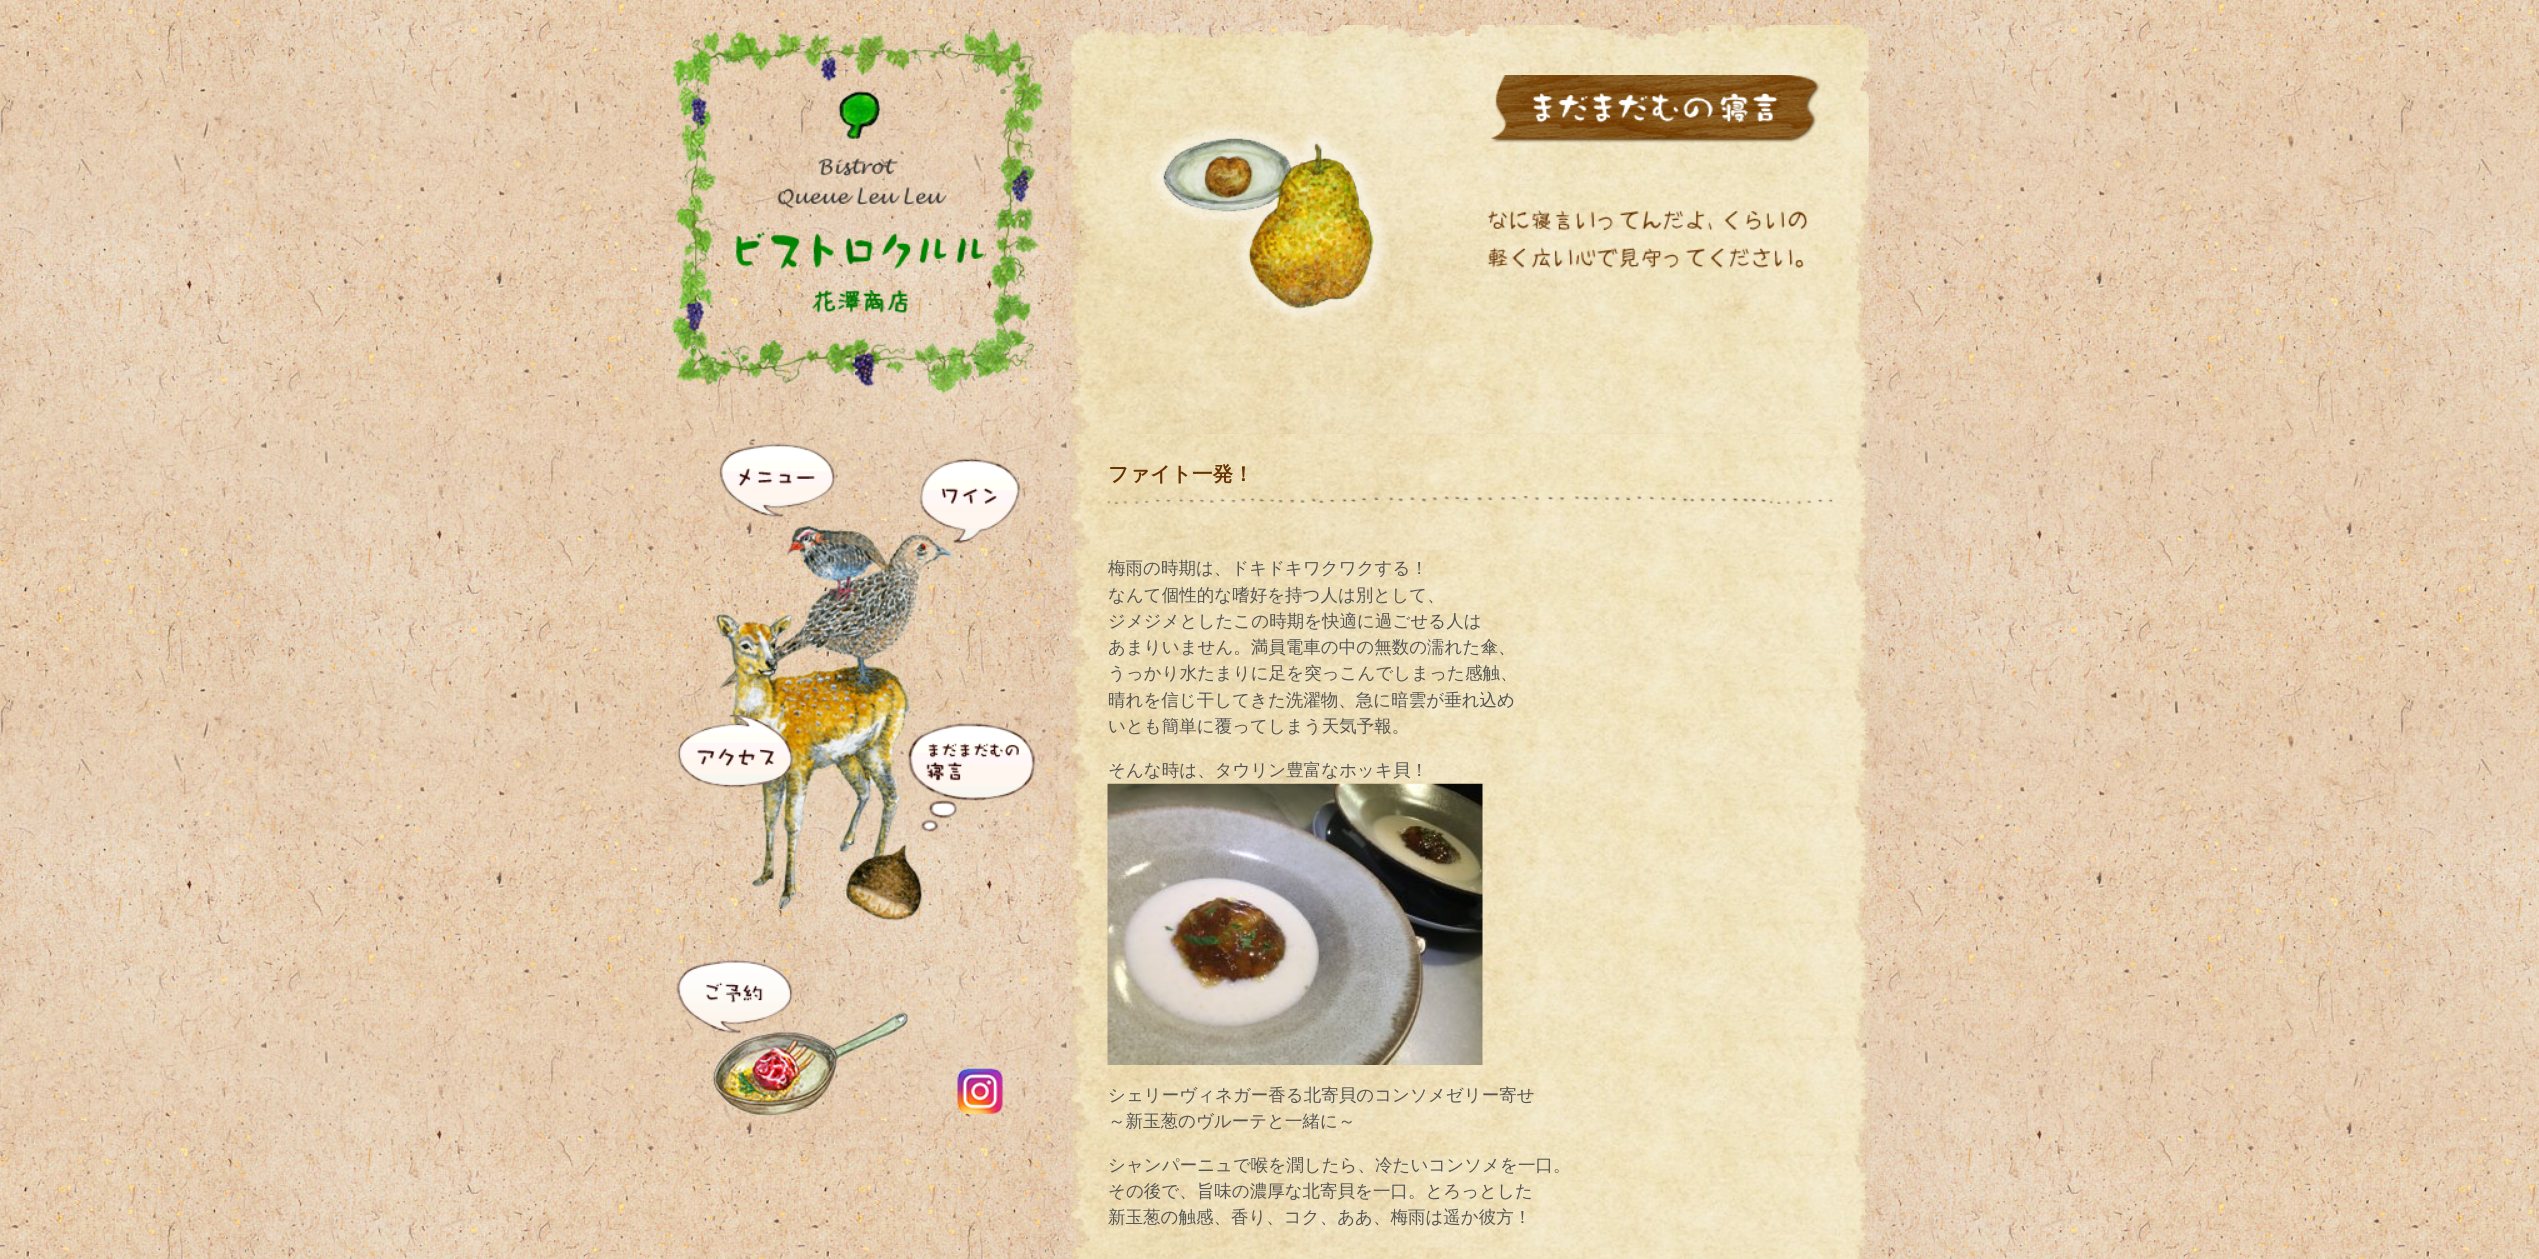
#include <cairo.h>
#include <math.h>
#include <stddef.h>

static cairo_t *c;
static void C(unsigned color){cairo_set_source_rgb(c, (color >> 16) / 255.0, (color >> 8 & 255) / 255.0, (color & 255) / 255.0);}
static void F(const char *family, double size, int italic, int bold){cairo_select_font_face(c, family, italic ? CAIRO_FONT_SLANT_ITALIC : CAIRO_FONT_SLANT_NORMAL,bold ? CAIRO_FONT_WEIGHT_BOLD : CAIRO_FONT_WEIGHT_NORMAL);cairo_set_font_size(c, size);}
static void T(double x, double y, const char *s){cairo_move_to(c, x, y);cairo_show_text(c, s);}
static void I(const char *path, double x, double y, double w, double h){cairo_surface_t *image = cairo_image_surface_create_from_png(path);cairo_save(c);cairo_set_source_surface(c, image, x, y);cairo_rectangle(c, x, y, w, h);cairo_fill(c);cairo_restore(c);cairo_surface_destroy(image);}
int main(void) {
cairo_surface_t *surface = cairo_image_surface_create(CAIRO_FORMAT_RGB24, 2539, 1259);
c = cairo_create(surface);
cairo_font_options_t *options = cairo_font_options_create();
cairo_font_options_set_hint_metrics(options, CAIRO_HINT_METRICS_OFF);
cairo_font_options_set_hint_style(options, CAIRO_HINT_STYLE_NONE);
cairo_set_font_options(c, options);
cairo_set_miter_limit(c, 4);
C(0xffffff);
cairo_paint(c);
I("1.png",0,0,2539,1259);
I("2.png",671,27,373,367);
I("3.png",676,442,361,480);
I("4.png",676,959,233,158);
I("5.png",957,1068,46,46);
I("10.png",1071,433,799,826);
I("6.png",1071,25,799,409);
I("7.png",1150,124,239,198);
I("8.png",1491,75,329,68);
I("9.png",1487,210,321,58);
F("WenQuanYi Zen Hei",20.5,0,1);
C(0x663300);
T(1108,481,"ファイト一発！");
I("11.png",1107,496,726,8);
F("WenQuanYi Zen Hei Medium",17.5,0,0);
C(0x555555);
T(1108,574,"梅雨の時期は、ドキドキワクワクする！");
T(1108,601,"なんて個性的な嗜好を持つ人は別として、");
T(1108,627,"ジメジメとしたこの時期を快適に過ごせる人は");
T(1108,653,"あまりいません。満員電車の中の無数の濡れた傘、");
T(1108,679,"うっかり水たまりに足を突っこんでしまった感触、");
T(1108,706,"晴れを信じ干してきた洗濯物、急に暗雲が垂れ込め");
T(1108,732,"いとも簡単に覆ってしまう天気予報。");
T(1108,776,"そんな時は、タウリン豊富なホッキ貝！");
I("12.png",1107,783,376,282);
T(1108,1101,"シェリーヴィネガー香る北寄貝のコンソメゼリー寄せ");
T(1108,1127,"～新玉葱のヴルーテと一緒に～");
T(1108,1171,"シャンパーニュで喉を潤したら、冷たいコンソメを一口。");
T(1108,1197,"その後で、旨味の濃厚な北寄貝を一口。とろっとした");
T(1108,1223,"新玉葱の触感、香り、コク、ああ、梅雨は遥か彼方！");
cairo_surface_write_to_png(surface, "o.png");
cairo_font_options_destroy(options);
cairo_destroy(c);
cairo_surface_destroy(surface);
return 0;
}
